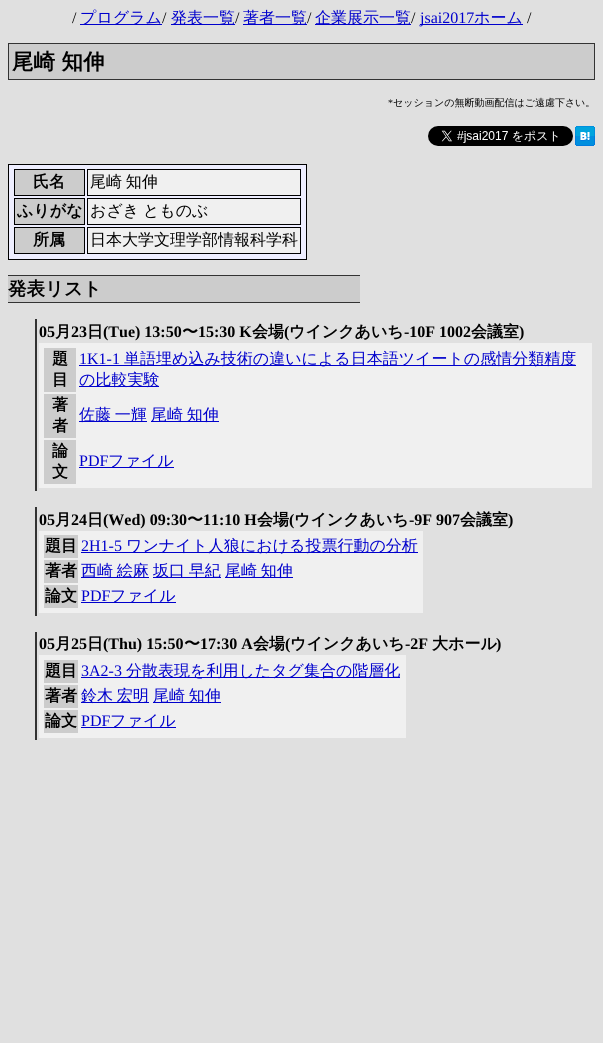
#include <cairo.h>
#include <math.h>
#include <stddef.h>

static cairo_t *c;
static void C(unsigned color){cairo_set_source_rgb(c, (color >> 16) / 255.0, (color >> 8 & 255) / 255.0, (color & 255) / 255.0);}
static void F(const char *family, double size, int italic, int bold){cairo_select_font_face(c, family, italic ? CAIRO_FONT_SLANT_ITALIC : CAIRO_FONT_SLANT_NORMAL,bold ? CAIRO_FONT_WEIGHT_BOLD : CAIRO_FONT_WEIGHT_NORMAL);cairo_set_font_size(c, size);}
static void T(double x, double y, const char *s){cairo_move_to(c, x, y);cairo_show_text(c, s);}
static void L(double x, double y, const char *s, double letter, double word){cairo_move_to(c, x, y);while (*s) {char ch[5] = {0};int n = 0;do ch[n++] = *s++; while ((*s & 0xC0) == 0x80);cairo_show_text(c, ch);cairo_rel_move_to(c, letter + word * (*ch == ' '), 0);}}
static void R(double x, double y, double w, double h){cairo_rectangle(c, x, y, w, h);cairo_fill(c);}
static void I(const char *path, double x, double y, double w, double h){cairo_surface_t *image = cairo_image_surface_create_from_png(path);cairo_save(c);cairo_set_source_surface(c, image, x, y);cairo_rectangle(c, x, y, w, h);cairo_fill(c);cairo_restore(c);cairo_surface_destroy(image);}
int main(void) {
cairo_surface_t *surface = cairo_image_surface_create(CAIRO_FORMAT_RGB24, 603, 1043);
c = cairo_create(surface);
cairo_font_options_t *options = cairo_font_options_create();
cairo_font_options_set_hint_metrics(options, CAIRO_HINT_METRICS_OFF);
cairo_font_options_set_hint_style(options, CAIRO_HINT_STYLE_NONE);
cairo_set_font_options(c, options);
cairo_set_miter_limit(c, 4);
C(0xe0e0e0);
cairo_paint(c);
F("Liberation Serif",16,0,0);
C(0x000000);
T(72,23,"/");
C(0x0000cc);
R(80,24,82,1);
F("WenQuanYi Zen Hei Medium",16,0,0);
T(80,23,"プログラム");
F("Liberation Serif",16,0,0);
C(0x000000);
T(162,23,"/");
C(0x0000cc);
R(171,24,64,1);
F("WenQuanYi Zen Hei Medium",16,0,0);
T(171,23,"発表一覧");
F("Liberation Serif",16,0,0);
C(0x000000);
T(235,23,"/");
C(0x0000cc);
R(243,24,64,1);
F("WenQuanYi Zen Hei Medium",16,0,0);
T(243,23,"著者一覧");
F("Liberation Serif",16,0,0);
C(0x000000);
T(307,23,"/");
C(0x0000cc);
R(315,24,96,1);
F("WenQuanYi Zen Hei Medium",16,0,0);
T(315,23,"企業展示一覧");
F("Liberation Serif",16,0,0);
C(0x000000);
T(411,23,"/");
C(0x0000cc);
R(420,24,103,1);
T(420,23,"jsai2017");
F("WenQuanYi Zen Hei Medium",16,0,0);
T(474,23,"ホーム");
F("Liberation Serif",16,0,0);
C(0x000000);
T(527,23,"/");
C(0xcccccc);
cairo_rectangle(c,8.5,43.5,586,36);
cairo_fill_preserve(c);
C(0x333333);
cairo_set_line_width(c,1);
cairo_stroke(c);
F("WenQuanYi Zen Hei",21.5,0,1);
C(0x000000);
T(12,69,"尾崎 知伸");
F("Liberation Serif",10,0,0);
T(388,106,"*");
F("WenQuanYi Zen Hei Medium",10,0,0);
T(393,106,"セッションの無断動画配信はご遠慮下さい。");
I("1.png",428,126,145,20);
I("2.png",575,126,20,20);
C(0xeeeeff);
cairo_rectangle(c,8.5,164.5,298,95);
cairo_fill_preserve(c);
C(0x000000);
cairo_stroke(c);
C(0xcccccc);
cairo_rectangle(c,14.5,169.5,70,26);
cairo_fill_preserve(c);
C(0x000000);
cairo_stroke(c);
F("WenQuanYi Zen Hei",16,0,1);
T(33,187,"氏名");
C(0xf0f0f0);
cairo_rectangle(c,87.5,169.5,213,26);
cairo_fill_preserve(c);
C(0x000000);
cairo_stroke(c);
F("WenQuanYi Zen Hei Medium",16,0,0);
L(90,187,"尾崎 知伸",0,-1);
C(0xcccccc);
cairo_rectangle(c,14.5,198.5,70,26);
cairo_fill_preserve(c);
C(0x000000);
cairo_stroke(c);
F("WenQuanYi Zen Hei",16,0,1);
T(17,216,"ふりがな");
C(0xf0f0f0);
cairo_rectangle(c,87.5,198.5,213,26);
cairo_fill_preserve(c);
C(0x000000);
cairo_stroke(c);
F("WenQuanYi Zen Hei Medium",16,0,0);
L(90,216,"おざき とものぶ",0,-1);
C(0xcccccc);
cairo_rectangle(c,14.5,227.5,70,26);
cairo_fill_preserve(c);
C(0x000000);
cairo_stroke(c);
F("WenQuanYi Zen Hei",16,0,1);
T(33,245,"所属");
C(0xf0f0f0);
cairo_rectangle(c,87.5,227.5,213,26);
cairo_fill_preserve(c);
C(0x000000);
cairo_stroke(c);
F("WenQuanYi Zen Hei Medium",16,0,0);
T(90,245,"日本大学文理学部情報科学科");
C(0xcccccc);
R(8,276,352,26);
C(0x333333);
R(8,275,352,1);
R(8,302,352,1);
F("WenQuanYi Zen Hei",18.5,0,1);
C(0x000000);
T(8,295,"発表リスト");
C(0x333333);
R(35,319,2,172);
F("Liberation Serif",16,0,1);
C(0x000000);
T(39,337,"05");
F("WenQuanYi Zen Hei",16,0,1);
T(55,337,"月");
F("Liberation Serif",16,0,1);
T(71,337,"23");
F("WenQuanYi Zen Hei",16,0,1);
T(87,337,"日");
F("Liberation Serif",16,0,1);
T(103,337,"(Tue) 13:50");
F("WenQuanYi Zen Hei",16,0,1);
T(182,337,"〜");
F("Liberation Serif",16,0,1);
T(198,337,"15:30 K");
F("WenQuanYi Zen Hei",16,0,1);
T(252,337,"会場");
F("Liberation Serif",16,0,1);
T(284,337,"(");
F("WenQuanYi Zen Hei",16,0,1);
T(289,337,"ウインクあいち");
F("Liberation Serif",16,0,1);
T(404,337,"-10F 1002");
F("WenQuanYi Zen Hei",16,0,1);
T(471,337,"会議室");
F("Liberation Serif",16,0,1);
T(519,337,")");
C(0xf0f0f0);
R(39,343,553,145);
C(0xcccccc);
R(44,348,32,44);
F("WenQuanYi Zen Hei",16,0,1);
C(0x000000);
T(52,364,"題");
T(52,385,"目");
F("Liberation Serif",16,0,0);
C(0x0000cc);
T(79,364,"1K1-1");
R(79,365,497,1);
F("WenQuanYi Zen Hei Medium",16,0,0);
T(124,364,"単語埋め込み技術の違いによる日本語ツイートの感情分類精度");
R(79,386,80,1);
T(79,385,"の比較実験");
C(0xcccccc);
R(44,394,32,44);
F("WenQuanYi Zen Hei",16,0,1);
C(0x000000);
T(52,410,"著");
T(52,431,"者");
C(0x0000cc);
R(79,421,68,1);
F("WenQuanYi Zen Hei Medium",16,0,0);
L(79,420,"佐藤 一輝",0,-1);
R(151,421,68,1);
L(151,420,"尾崎 知伸",0,-1);
C(0xcccccc);
R(44,440,32,44);
F("WenQuanYi Zen Hei",16,0,1);
C(0x000000);
T(52,456,"論");
T(52,477,"文");
F("Liberation Serif",16,0,0);
C(0x0000cc);
T(79,466,"PDF");
R(79,467,95,1);
F("WenQuanYi Zen Hei Medium",16,0,0);
T(108,466,"ファイル");
C(0x333333);
R(35,507,2,109);
F("Liberation Serif",16,0,1);
C(0x000000);
T(39,525,"05");
F("WenQuanYi Zen Hei",16,0,1);
T(55,525,"月");
F("Liberation Serif",16,0,1);
T(71,525,"24");
F("WenQuanYi Zen Hei",16,0,1);
T(87,525,"日");
F("Liberation Serif",16,0,1);
T(103,525,"(Wed) 09:30");
F("WenQuanYi Zen Hei",16,0,1);
T(187,525,"〜");
F("Liberation Serif",16,0,1);
T(203,525,"11:10 H");
F("WenQuanYi Zen Hei",16,0,1);
T(257,525,"会場");
F("Liberation Serif",16,0,1);
T(289,525,"(");
F("WenQuanYi Zen Hei",16,0,1);
T(294,525,"ウインクあいち");
F("Liberation Serif",16,0,1);
T(409,525,"-9F 907");
F("WenQuanYi Zen Hei",16,0,1);
T(460,525,"会議室");
F("Liberation Serif",16,0,1);
T(508,525,")");
C(0xf0f0f0);
R(39,531,384,82);
C(0xcccccc);
R(44,535,34,23);
F("WenQuanYi Zen Hei",16,0,1);
C(0x000000);
T(45,551,"題目");
F("Liberation Serif",16,0,0);
C(0x0000cc);
T(81,551,"2H1-5");
R(81,552,337,1);
F("WenQuanYi Zen Hei Medium",16,0,0);
T(126,551,"ワンナイト人狼における投票行動の分析");
C(0xcccccc);
R(44,560,34,23);
F("WenQuanYi Zen Hei",16,0,1);
C(0x000000);
T(45,576,"著者");
C(0x0000cc);
R(81,577,68,1);
F("WenQuanYi Zen Hei Medium",16,0,0);
L(81,576,"西崎 絵麻",0,-1);
R(153,577,68,1);
L(153,576,"坂口 早紀",0,-1);
R(225,577,68,1);
L(225,576,"尾崎 知伸",0,-1);
C(0xcccccc);
R(44,585,34,23);
F("WenQuanYi Zen Hei",16,0,1);
C(0x000000);
T(45,601,"論文");
F("Liberation Serif",16,0,0);
C(0x0000cc);
T(81,601,"PDF");
R(81,602,95,1);
F("WenQuanYi Zen Hei Medium",16,0,0);
T(110,601,"ファイル");
C(0x333333);
R(35,632,2,108);
F("Liberation Serif",16,0,1);
C(0x000000);
T(39,649,"05");
F("WenQuanYi Zen Hei",16,0,1);
T(55,649,"月");
F("Liberation Serif",16,0,1);
T(71,649,"25");
F("WenQuanYi Zen Hei",16,0,1);
T(87,649,"日");
F("Liberation Serif",16,0,1);
T(103,649,"(Thu) 15:50");
F("WenQuanYi Zen Hei",16,0,1);
T(184,649,"〜");
F("Liberation Serif",16,0,1);
T(200,649,"17:30 A");
F("WenQuanYi Zen Hei",16,0,1);
T(253,649,"会場");
F("Liberation Serif",16,0,1);
T(285,649,"(");
F("WenQuanYi Zen Hei",16,0,1);
T(290,649,"ウインクあいち");
F("Liberation Serif",16,0,1);
T(405,649,"-2F");
F("WenQuanYi Zen Hei",16,0,1);
T(432,649,"大ホール");
F("Liberation Serif",16,0,1);
T(496,649,")");
C(0xf0f0f0);
R(39,655,367,83);
C(0xcccccc);
R(44,660,34,23);
F("WenQuanYi Zen Hei",16,0,1);
C(0x000000);
T(45,676,"題目");
F("Liberation Serif",16,0,0);
C(0x0000cc);
T(81,676,"3A2-3");
R(81,677,319,1);
F("WenQuanYi Zen Hei Medium",16,0,0);
T(126,676,"分散表現を利用したタグ集合の階層化");
C(0xcccccc);
R(44,685,34,23);
F("WenQuanYi Zen Hei",16,0,1);
C(0x000000);
T(45,701,"著者");
C(0x0000cc);
R(81,702,68,1);
F("WenQuanYi Zen Hei Medium",16,0,0);
L(81,701,"鈴木 宏明",0,-1);
R(153,702,68,1);
L(153,701,"尾崎 知伸",0,-1);
C(0xcccccc);
R(44,710,34,23);
F("WenQuanYi Zen Hei",16,0,1);
C(0x000000);
T(45,726,"論文");
F("Liberation Serif",16,0,0);
C(0x0000cc);
T(81,726,"PDF");
R(81,727,95,1);
F("WenQuanYi Zen Hei Medium",16,0,0);
T(110,726,"ファイル");
cairo_surface_write_to_png(surface, "o.png");
cairo_font_options_destroy(options);
cairo_destroy(c);
cairo_surface_destroy(surface);
return 0;
}
